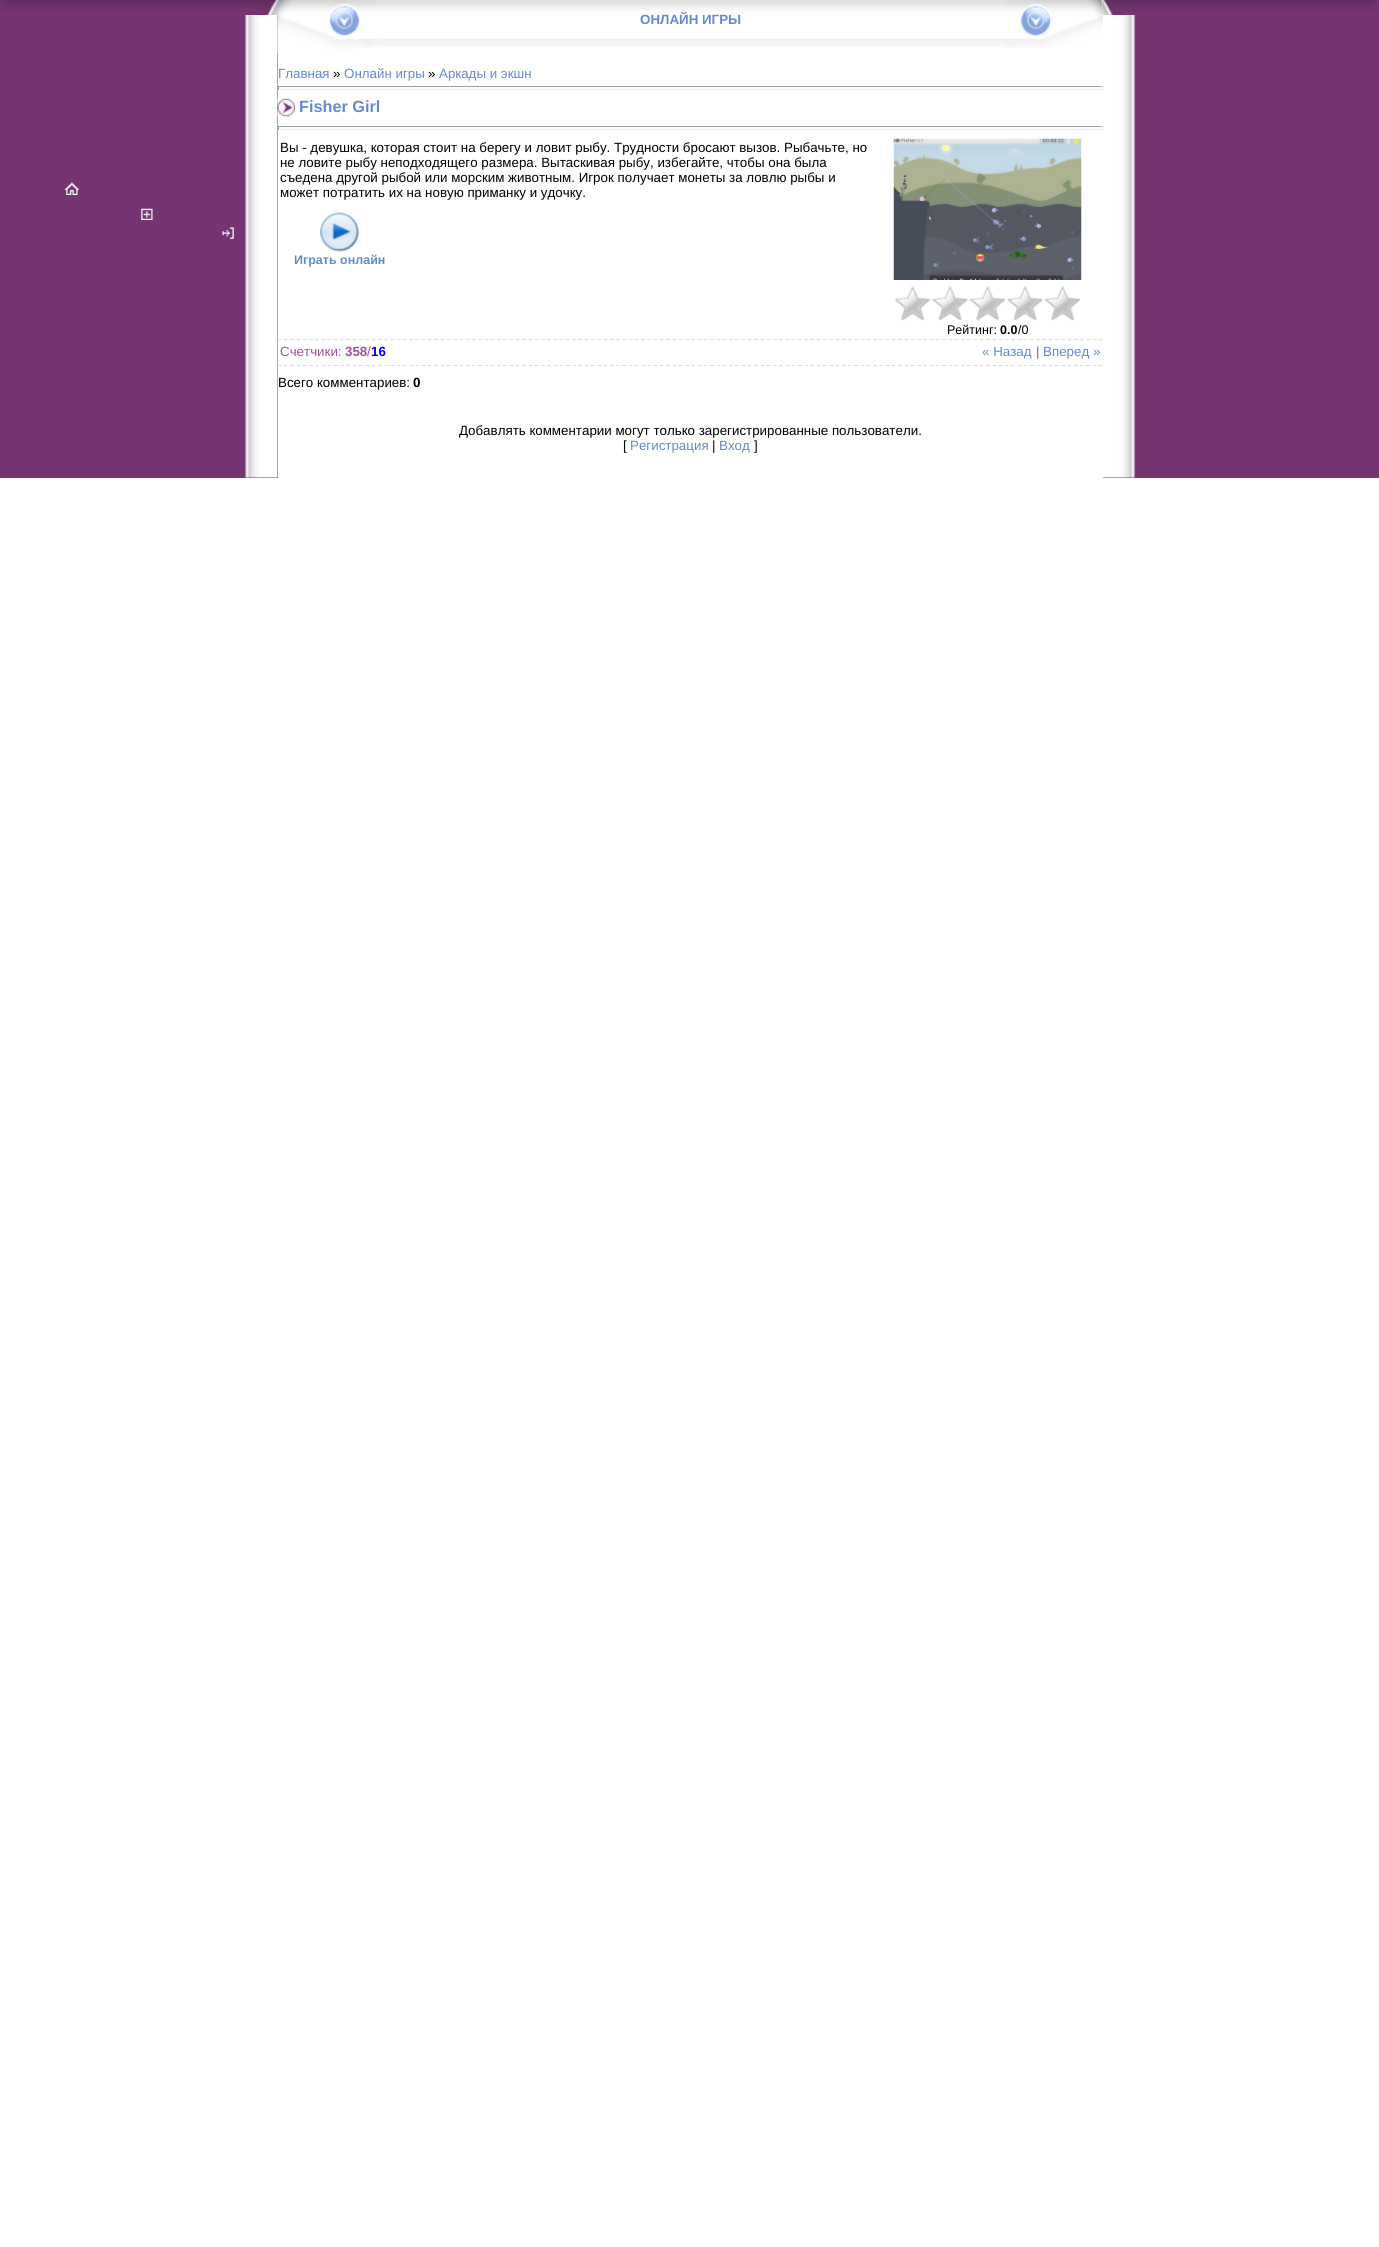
#include <cairo.h>
#include <math.h>
#include <stddef.h>

static cairo_t *c;
static void C(unsigned color){cairo_set_source_rgb(c, (color >> 16) / 255.0, (color >> 8 & 255) / 255.0, (color & 255) / 255.0);}
static void F(const char *family, double size, int italic, int bold){cairo_select_font_face(c, family, italic ? CAIRO_FONT_SLANT_ITALIC : CAIRO_FONT_SLANT_NORMAL,bold ? CAIRO_FONT_WEIGHT_BOLD : CAIRO_FONT_WEIGHT_NORMAL);cairo_set_font_size(c, size);}
static void T(double x, double y, const char *s){cairo_move_to(c, x, y);cairo_show_text(c, s);}
static void R(double x, double y, double w, double h){cairo_rectangle(c, x, y, w, h);cairo_fill(c);}
static void I(const char *path, double x, double y, double w, double h){cairo_surface_t *image = cairo_image_surface_create_from_png(path);cairo_save(c);cairo_set_source_surface(c, image, x, y);cairo_rectangle(c, x, y, w, h);cairo_fill(c);cairo_restore(c);cairo_surface_destroy(image);}
int main(void) {
cairo_surface_t *surface = cairo_image_surface_create(CAIRO_FORMAT_RGB24, 1379, 2247);
c = cairo_create(surface);
cairo_font_options_t *options = cairo_font_options_create();
cairo_font_options_set_hint_metrics(options, CAIRO_HINT_METRICS_OFF);
cairo_font_options_set_hint_style(options, CAIRO_HINT_STYLE_NONE);
cairo_set_font_options(c, options);
cairo_set_miter_limit(c, 4);
C(0xffffff);
cairo_paint(c);
C(0x743572);
R(0,0,278,478);
I("1.png",65,182,14,13);
I("2.png",244,0,34,478);
I("3.png",0,0,278,15);
I("5.png",377,0,626,47);
I("4.png",277,0,101,53);
F("Liberation Sans",13.35,0,1);
C(0x648acd);
T(640,24,"ОНЛАЙН ИГРЫ");
cairo_new_path(c);
cairo_move_to(c,277.5,339.5);
cairo_line_to(c,1102.5,339.5);
C(0xdddddd);
cairo_set_line_width(c,1.2);
cairo_set_dash(c,(double[]){3.75,2.52},2,0);
cairo_stroke(c);
cairo_new_path(c);
cairo_move_to(c,277.5,365.5);
cairo_line_to(c,1102.5,365.5);
cairo_stroke(c);
C(0x743572);
R(1103,15,276,463);
I("11.png",1102,0,34,478);
I("12.png",1102,0,277,15);
I("6.png",1002,0,101,48);
F("Liberation Sans",13.35,0,0);
C(0x648acd);
T(278,78,"Главная");
C(0x000000);
T(333,78,"»");
C(0x648acd);
T(344,78,"Онлайн игры");
C(0x000000);
T(428,78,"»");
C(0x648acd);
T(439,78,"Аркады и экшн");
C(0x9f9f9f);
R(278,86,825,1);
C(0xeeeeee);
R(1101,86,1,4);
R(278,89,825,1);
C(0x9f9f9f);
R(278,86,1,4);
I("7.png",277,98,18,19);
F("Liberation Sans",16.25,0,1);
C(0x648acd);
T(299,112,"Fisher Girl");
C(0x9f9f9f);
R(278,126,825,1);
C(0xeeeeee);
R(1101,126,1,4);
R(278,129,825,1);
C(0x9f9f9f);
R(278,126,1,4);
F("Liberation Sans",13.35,0,0);
C(0x000000);
T(280,152,"Вы - девушка, которая стоит на берегу и ловит рыбу. Трудности бросают вызов. Рыбачьте, но");
T(280,167,"не ловите рыбу неподходящего размера. Вытаскивая рыбу, избегайте, чтобы она была");
T(280,182,"съедена другой рыбой или морским животным. Игрок получает монеты за ловлю рыбы и");
T(280,197,"может потратить их на новую приманку и удочку.");
I("8.png",320,212,39,40);
F("Liberation Sans",12.5,0,1);
C(0x648acd);
T(294,264,"Играть онлайн");
I("9.png",893,138,189,142);
I("10.png",895,286,185,35);
F("Liberation Sans",12.5,0,0);
C(0x000000);
T(947,334,"Рейтинг:");
F("Liberation Sans",12.5,0,1);
T(1000,334,"0.0");
F("Liberation Sans",12.5,0,0);
T(1018,334,"/0");
F("Liberation Sans",13.35,0,0);
C(0x9c559a);
T(280,356,"Счетчики:");
F("Liberation Sans",13.35,0,1);
T(345,356,"358");
F("Liberation Sans",13.35,0,0);
T(367,356,"/");
F("Liberation Sans",13.35,0,1);
C(0x0000ff);
T(371,356,"16");
F("Liberation Sans",13.35,0,0);
C(0x648acd);
T(982,356,"« Назад");
C(0x9c559a);
T(1036,356,"|");
C(0x648acd);
T(1043,356,"Вперед »");
C(0x000000);
T(278,387,"Всего комментариев:");
F("Liberation Sans",13.35,0,1);
T(413,387,"0");
F("Liberation Sans",13.35,0,0);
T(459,435,"Добавлять комментарии могут только зарегистрированные пользователи.");
T(623,450,"[");
C(0x648acd);
T(630,450,"Регистрация");
C(0x000000);
T(712,450,"|");
C(0x648acd);
T(719,450,"Вход");
C(0x000000);
T(754,450,"]");
I("13.png",141,208,12,12);
I("14.png",222,227,12,12);
cairo_surface_write_to_png(surface, "o.png");
cairo_font_options_destroy(options);
cairo_destroy(c);
cairo_surface_destroy(surface);
return 0;
}
